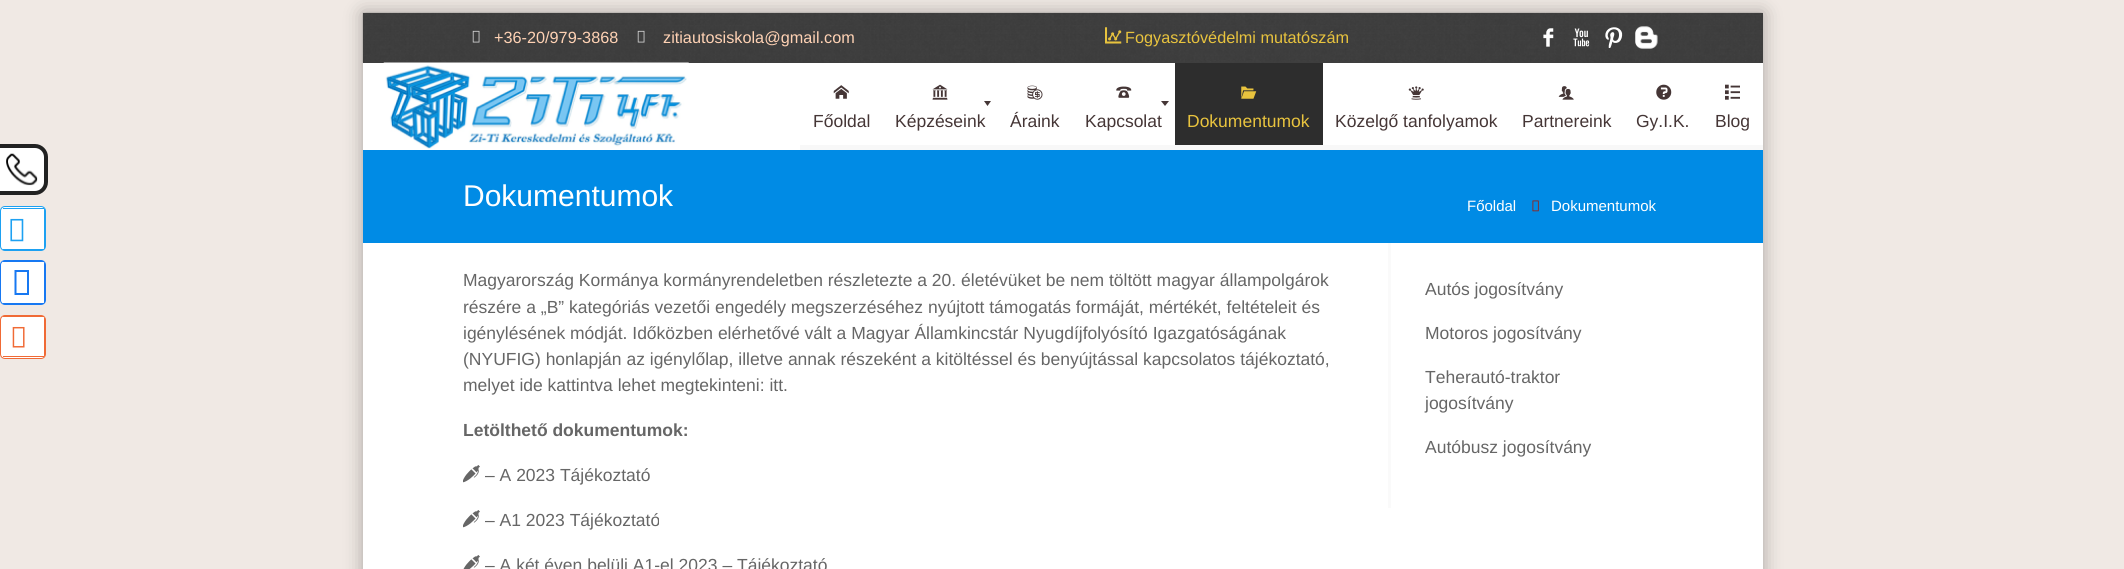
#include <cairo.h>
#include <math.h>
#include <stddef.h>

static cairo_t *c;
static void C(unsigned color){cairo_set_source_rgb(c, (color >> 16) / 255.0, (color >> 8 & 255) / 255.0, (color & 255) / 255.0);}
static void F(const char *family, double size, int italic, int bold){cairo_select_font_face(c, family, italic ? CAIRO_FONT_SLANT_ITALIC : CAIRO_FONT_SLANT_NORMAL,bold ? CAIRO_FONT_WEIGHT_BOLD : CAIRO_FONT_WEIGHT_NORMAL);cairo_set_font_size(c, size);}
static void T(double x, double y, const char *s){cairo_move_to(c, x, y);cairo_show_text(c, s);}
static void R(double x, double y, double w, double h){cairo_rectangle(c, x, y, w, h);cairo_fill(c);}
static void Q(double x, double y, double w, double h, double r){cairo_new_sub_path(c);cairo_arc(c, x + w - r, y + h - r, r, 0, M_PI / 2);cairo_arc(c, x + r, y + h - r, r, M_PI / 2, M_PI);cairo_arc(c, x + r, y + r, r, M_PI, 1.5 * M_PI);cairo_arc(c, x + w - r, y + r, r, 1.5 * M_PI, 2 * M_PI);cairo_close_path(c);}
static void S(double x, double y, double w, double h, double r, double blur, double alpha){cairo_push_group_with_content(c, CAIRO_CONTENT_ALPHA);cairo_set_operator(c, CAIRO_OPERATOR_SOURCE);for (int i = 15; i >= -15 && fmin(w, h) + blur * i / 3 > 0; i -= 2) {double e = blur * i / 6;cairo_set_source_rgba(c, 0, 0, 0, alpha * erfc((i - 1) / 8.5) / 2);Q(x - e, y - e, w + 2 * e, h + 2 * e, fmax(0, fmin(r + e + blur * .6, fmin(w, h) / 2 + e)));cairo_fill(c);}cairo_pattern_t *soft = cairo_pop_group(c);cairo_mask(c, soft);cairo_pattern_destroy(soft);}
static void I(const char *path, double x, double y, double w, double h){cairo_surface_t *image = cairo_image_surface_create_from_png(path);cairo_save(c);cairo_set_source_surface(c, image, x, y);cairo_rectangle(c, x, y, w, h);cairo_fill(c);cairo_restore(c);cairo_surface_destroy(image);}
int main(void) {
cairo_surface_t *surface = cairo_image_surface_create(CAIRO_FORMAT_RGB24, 2124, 569);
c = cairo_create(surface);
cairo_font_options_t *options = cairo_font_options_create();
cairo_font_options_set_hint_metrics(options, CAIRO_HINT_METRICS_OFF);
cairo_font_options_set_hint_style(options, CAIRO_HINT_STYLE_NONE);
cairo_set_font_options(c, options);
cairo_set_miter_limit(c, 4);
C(0xf0e9e4);
cairo_paint(c);
C(0xffffff);
cairo_new_path(c);
cairo_move_to(c,-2,146);
cairo_line_to(c,35,146);
cairo_curve_to(c,41,146,46,151,46,157);
cairo_line_to(c,46,182);
cairo_curve_to(c,46,188,41,193,35,193);
cairo_line_to(c,-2,193);
cairo_close_path(c);
cairo_fill_preserve(c);
C(0x222222);
cairo_set_line_width(c,4);
cairo_stroke(c);
I("1.png",6,153,32,33);
C(0x000000);
S(363,13,1400,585,0,9.5,.3);
C(0xffffff);
R(363,63,1400,506);
C(0x3e3e3e);
R(363,13,1400,50);
I("2.png",362,12,1401,51);
I("3.png",472,30,8,13);
F("Liberation Sans",16.25,0,0);
C(0xffd2b4);
T(494,43,"+36-20/979-3868");
I("4.png",637,30,8,13);
T(663,43,"zitiautosiskola@gmail.com");
I("5.png",1105,27,17,17);
C(0xe8c33e);
T(1125,43,"Fogyasztóvédelmi mutatószám");
F("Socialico",30,0,0);
C(0xffffff);
T(1542,48,"F");
T(1572,48,"X");
T(1602,48,":");
I("6.png",1635,26,23,23);
I("7.png",383,62,306,87);
C(0xf8f8f8);
R(800,145,963,5);
I("8.png",833,85,16,14);
F("Liberation Sans",17.5,0,0);
C(0x453636);
T(813,127,"Főoldal");
I("9.png",932,84,16,16);
cairo_new_path(c);
cairo_move_to(c,984,101);
cairo_line_to(c,991,101);
cairo_line_to(c,987.5,106);
cairo_close_path(c);
cairo_fill(c);
T(895,127,"Képzéseink");
I("10.png",1027,85,16,15);
T(1010,127,"Áraink");
I("11.png",1116,86,16,12);
cairo_new_path(c);
cairo_move_to(c,1161,101);
cairo_line_to(c,1169,101);
cairo_line_to(c,1165,106);
cairo_close_path(c);
cairo_fill(c);
T(1085,127,"Kapcsolat");
C(0x2d2d2d);
R(1175,63,148,82);
I("12.png",1241,86,16,13);
C(0xe8c33e);
T(1187,127,"Dokumentumok");
I("13.png",1408,86,16,14);
C(0x453636);
T(1335,127,"Közelgő tanfolyamok");
I("14.png",1558,86,16,14);
T(1522,127,"Partnereink");
I("15.png",1656,84,16,16);
T(1636,127,"Gy.I.K.");
I("16.png",1725,84,15,16);
T(1715,127,"Blog");
C(0x008be5);
R(363,150,1400,93);
F("Liberation Sans",30,0,0);
C(0xffffff);
T(463,206,"Dokumentumok");
F("Liberation Sans",15,0,0);
T(1467,211,"Főoldal");
I("17.png",1532,200,7,12);
T(1551,211,"Dokumentumok");
F("Liberation Sans",17.5,0,0);
C(0x666666);
T(463,286,"Magyarország Kormánya kormányrendeletben részletezte a 20. életévüket be nem töltött magyar állampolgárok");
T(463,313,"részére a „B” kategóriás vezetői engedély megszerzéséhez nyújtott támogatás formáját, mértékét, feltételeit és");
T(463,339,"igénylésének módját. Időközben elérhetővé vált a Magyar Államkincstár Nyugdíjfolyósító Igazgatóságának");
T(463,365,"(NYUFIG) honlapján az igénylőlap, illetve annak részeként a kitöltéssel és benyújtással kapcsolatos tájékoztató,");
T(463,391,"melyet ide kattintva lehet megtekinteni: itt.");
F("Liberation Sans",17.5,0,1);
T(463,436,"Letölthető dokumentumok:");
I("18.png",463,465,17,18);
F("Liberation Sans",17.5,0,0);
T(485,481,"– A 2023 Tájékoztató");
I("18.png",463,510,17,18);
T(485,526,"– A1 2023 Tájékoztató");
I("19.png",463,555,17,14);
T(485,571,"– A két éven belüli A1-el 2023 – Tájékoztató");
C(0xfafafa);
R(1388,243,3,265);
C(0x666666);
T(1425,295,"Autós jogosítvány");
T(1425,339,"Motoros jogosítvány");
T(1425,383,"Teherautó-traktor");
T(1425,409,"jogosítvány");
T(1425,453,"Autóbusz jogosítvány");
C(0xffffff);
Q(.5,206.5,45,44,4.5);
cairo_fill_preserve(c);
C(0x1da1f2);
cairo_set_line_width(c,1);
cairo_stroke(c);
R(3,208,41,1);
R(44,209,1,40);
R(3,249,41,1);
I("20.png",10,218,14,24);
C(0xffffff);
Q(.5,260.5,45,44,4.5);
cairo_fill_preserve(c);
C(0x1778f2);
cairo_stroke(c);
R(3,261,41,1);
R(44,263,1,40);
R(3,303,41,1);
cairo_new_path(c);
cairo_move_to(c,14.5,295);
cairo_line_to(c,14.5,270);
cairo_line_to(c,29,270);
cairo_line_to(c,29,295);
cairo_close_path(c);
cairo_move_to(c,16.5,293);
cairo_line_to(c,27,293);
cairo_line_to(c,27,272);
cairo_line_to(c,16.5,272);
cairo_close_path(c);
cairo_fill(c);
C(0xffffff);
Q(.5,315.5,45,43,4.5);
cairo_fill_preserve(c);
C(0xf06a35);
cairo_stroke(c);
R(3,316,41,1);
R(44,318,1,38);
R(3,356,41,1);
I("21.png",12,326,13,22);
cairo_surface_write_to_png(surface, "o.png");
cairo_font_options_destroy(options);
cairo_destroy(c);
cairo_surface_destroy(surface);
return 0;
}
